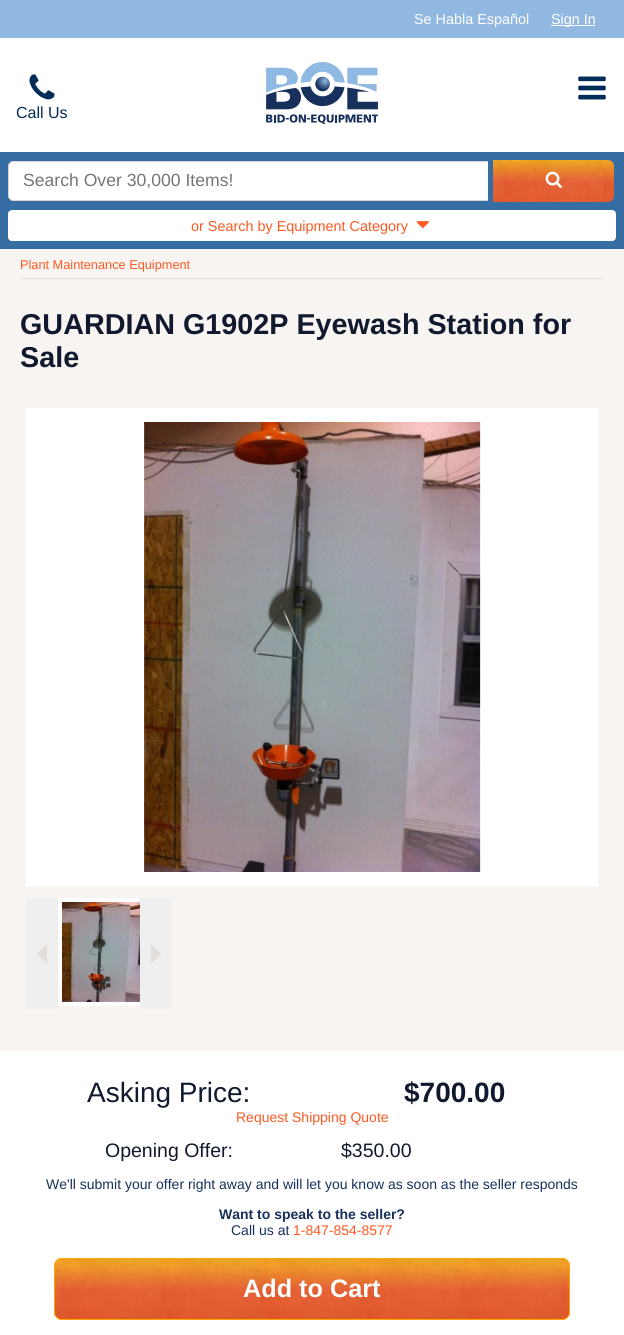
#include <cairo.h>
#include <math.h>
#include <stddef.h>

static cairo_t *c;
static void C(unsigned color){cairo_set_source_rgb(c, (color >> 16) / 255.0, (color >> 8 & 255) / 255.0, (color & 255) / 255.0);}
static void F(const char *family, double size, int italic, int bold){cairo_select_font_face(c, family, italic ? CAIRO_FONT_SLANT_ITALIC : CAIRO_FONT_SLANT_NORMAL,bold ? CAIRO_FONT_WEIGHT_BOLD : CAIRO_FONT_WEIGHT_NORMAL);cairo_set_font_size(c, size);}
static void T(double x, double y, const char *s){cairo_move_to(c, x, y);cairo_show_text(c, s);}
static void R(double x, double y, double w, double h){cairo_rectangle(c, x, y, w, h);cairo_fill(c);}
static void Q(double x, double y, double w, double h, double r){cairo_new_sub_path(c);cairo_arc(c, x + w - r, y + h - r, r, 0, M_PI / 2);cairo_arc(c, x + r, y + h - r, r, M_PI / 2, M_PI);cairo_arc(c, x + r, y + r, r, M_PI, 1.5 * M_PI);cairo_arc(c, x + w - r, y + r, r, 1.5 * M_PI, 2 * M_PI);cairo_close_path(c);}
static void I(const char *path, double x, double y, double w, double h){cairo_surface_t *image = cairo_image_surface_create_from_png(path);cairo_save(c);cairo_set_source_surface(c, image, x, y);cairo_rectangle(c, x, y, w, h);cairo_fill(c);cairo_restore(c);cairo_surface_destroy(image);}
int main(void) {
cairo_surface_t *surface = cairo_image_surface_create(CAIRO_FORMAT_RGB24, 624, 1335);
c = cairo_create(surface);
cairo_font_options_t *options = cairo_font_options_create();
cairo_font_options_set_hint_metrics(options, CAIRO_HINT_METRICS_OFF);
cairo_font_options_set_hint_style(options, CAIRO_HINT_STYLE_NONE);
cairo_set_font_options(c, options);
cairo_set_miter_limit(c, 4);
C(0xffffff);
cairo_paint(c);
C(0x91b8e1);
R(0,0,624,38);
F("Liberation Sans",14.4,0,0);
C(0xffffff);
T(414,24,"Se Habla Español");
R(551,25,44,1);
T(551,24,"Sign In");
I("1.png",266,62,112,62);
I("2.png",578,76,28,24);
I("3.png",29,74,26,26);
F("Liberation Sans",16,0,0);
C(0x012c57);
T(16,118,"Call Us");
C(0x366da3);
R(0,152,624,97);
C(0xffffff);
cairo_new_path(c);
cairo_move_to(c,14,161);
cairo_line_to(c,488,161);
cairo_line_to(c,488,201);
cairo_line_to(c,14,201);
cairo_curve_to(c,10.5,201,8,198.5,8,195);
cairo_line_to(c,8,167);
cairo_curve_to(c,8,163.5,10.5,161,14,161);
cairo_close_path(c);
cairo_fill(c);
C(0xdad3cf);
cairo_set_fill_rule(c,CAIRO_FILL_RULE_EVEN_ODD);
cairo_new_path(c);
cairo_move_to(c,14,161);
cairo_line_to(c,488,161);
cairo_line_to(c,488,201);
cairo_line_to(c,14,201);
cairo_curve_to(c,11,201,8,198,8,195);
cairo_line_to(c,8,167);
cairo_curve_to(c,8,164,11,161,14,161);
cairo_close_path(c);
cairo_move_to(c,14,162);
cairo_line_to(c,488,162);
cairo_line_to(c,488,200);
cairo_line_to(c,14,200);
cairo_curve_to(c,11,200,9,198,9,195);
cairo_line_to(c,9,167);
cairo_curve_to(c,9,164,11,162,14,162);
cairo_close_path(c);
cairo_fill(c);
F("Liberation Sans",17.6,0,0);
C(0x757575);
T(23,186,"Search Over 30,000 Items!");
I("4.png",493,160,121,42);
I("5.png",545,171,17,17);
C(0xffffff);
Q(8,210,608,31,4);
cairo_fill(c);
F("Liberation Sans",14.4,0,0);
C(0xfe5922);
T(191,231,"or Search by Equipment Category");
I("6.png",416,221,13,7);
C(0xf7f4f2);
R(0,249,624,802);
C(0xe2ddda);
R(20,278,584,1);
F("Liberation Sans",12.75,0,0);
C(0xfe5922);
T(20,269,"Plant Maintenance Equipment");
F("Liberation Sans",28.75,0,1);
C(0x11192e);
T(20,334,"GUARDIAN G1902P Eyewash Station for");
T(20,367,"Sale");
C(0xffffff);
R(26,408,572,478);
I("7.png",144,422,337,450);
C(0xefefef);
R(26,898,32,111);
C(0xe2deda);
cairo_set_fill_rule(c,CAIRO_FILL_RULE_WINDING);
cairo_new_path(c);
cairo_move_to(c,37,954);
cairo_line_to(c,47,964);
cairo_line_to(c,47,944);
cairo_close_path(c);
cairo_fill(c);
C(0xefefef);
R(140,898,32,111);
cairo_save(c);
cairo_rectangle(c,58,898,82,111);
cairo_clip(c);
cairo_rectangle(c,60,900,86,104);
C(0xffffff);
cairo_set_line_width(c,4);
cairo_stroke(c);
cairo_restore(c);
I("8.png",62,902,78,100);
C(0xe2deda);
cairo_new_path(c);
cairo_move_to(c,151,944);
cairo_line_to(c,151,964);
cairo_line_to(c,161,954);
cairo_close_path(c);
cairo_fill(c);
F("Liberation Sans",28,0,0);
C(0x11192e);
T(87,1102,"Asking Price:");
F("Liberation Sans",28,0,1);
T(404,1102,"$700.00");
F("Liberation Sans",14,0,0);
C(0xfe5922);
T(236,1122,"Request Shipping Quote");
F("Liberation Sans",19.5,0,0);
C(0x11192e);
T(105,1157,"Opening Offer:");
T(341,1157,"$350.00");
F("Liberation Sans",14,0,0);
C(0x18305c);
T(46,1189,"We'll submit your offer right away and will let you know as soon as the seller responds");
F("Liberation Sans",14,0,1);
T(219,1219,"Want to speak to the seller?");
F("Liberation Sans",14,0,0);
T(231,1235,"Call us at");
C(0xfe5922);
T(293,1235,"1-847-854-8577");
I("9.png",54,1258,516,62);
Q(54.5,1258.5,515,61,7.5);
C(0xffa500);
cairo_set_line_width(c,1);
cairo_stroke(c);
F("Liberation Sans",25.25,0,1);
C(0xffffff);
T(243,1297,"Add to Cart");
cairo_surface_write_to_png(surface, "o.png");
cairo_font_options_destroy(options);
cairo_destroy(c);
cairo_surface_destroy(surface);
return 0;
}
